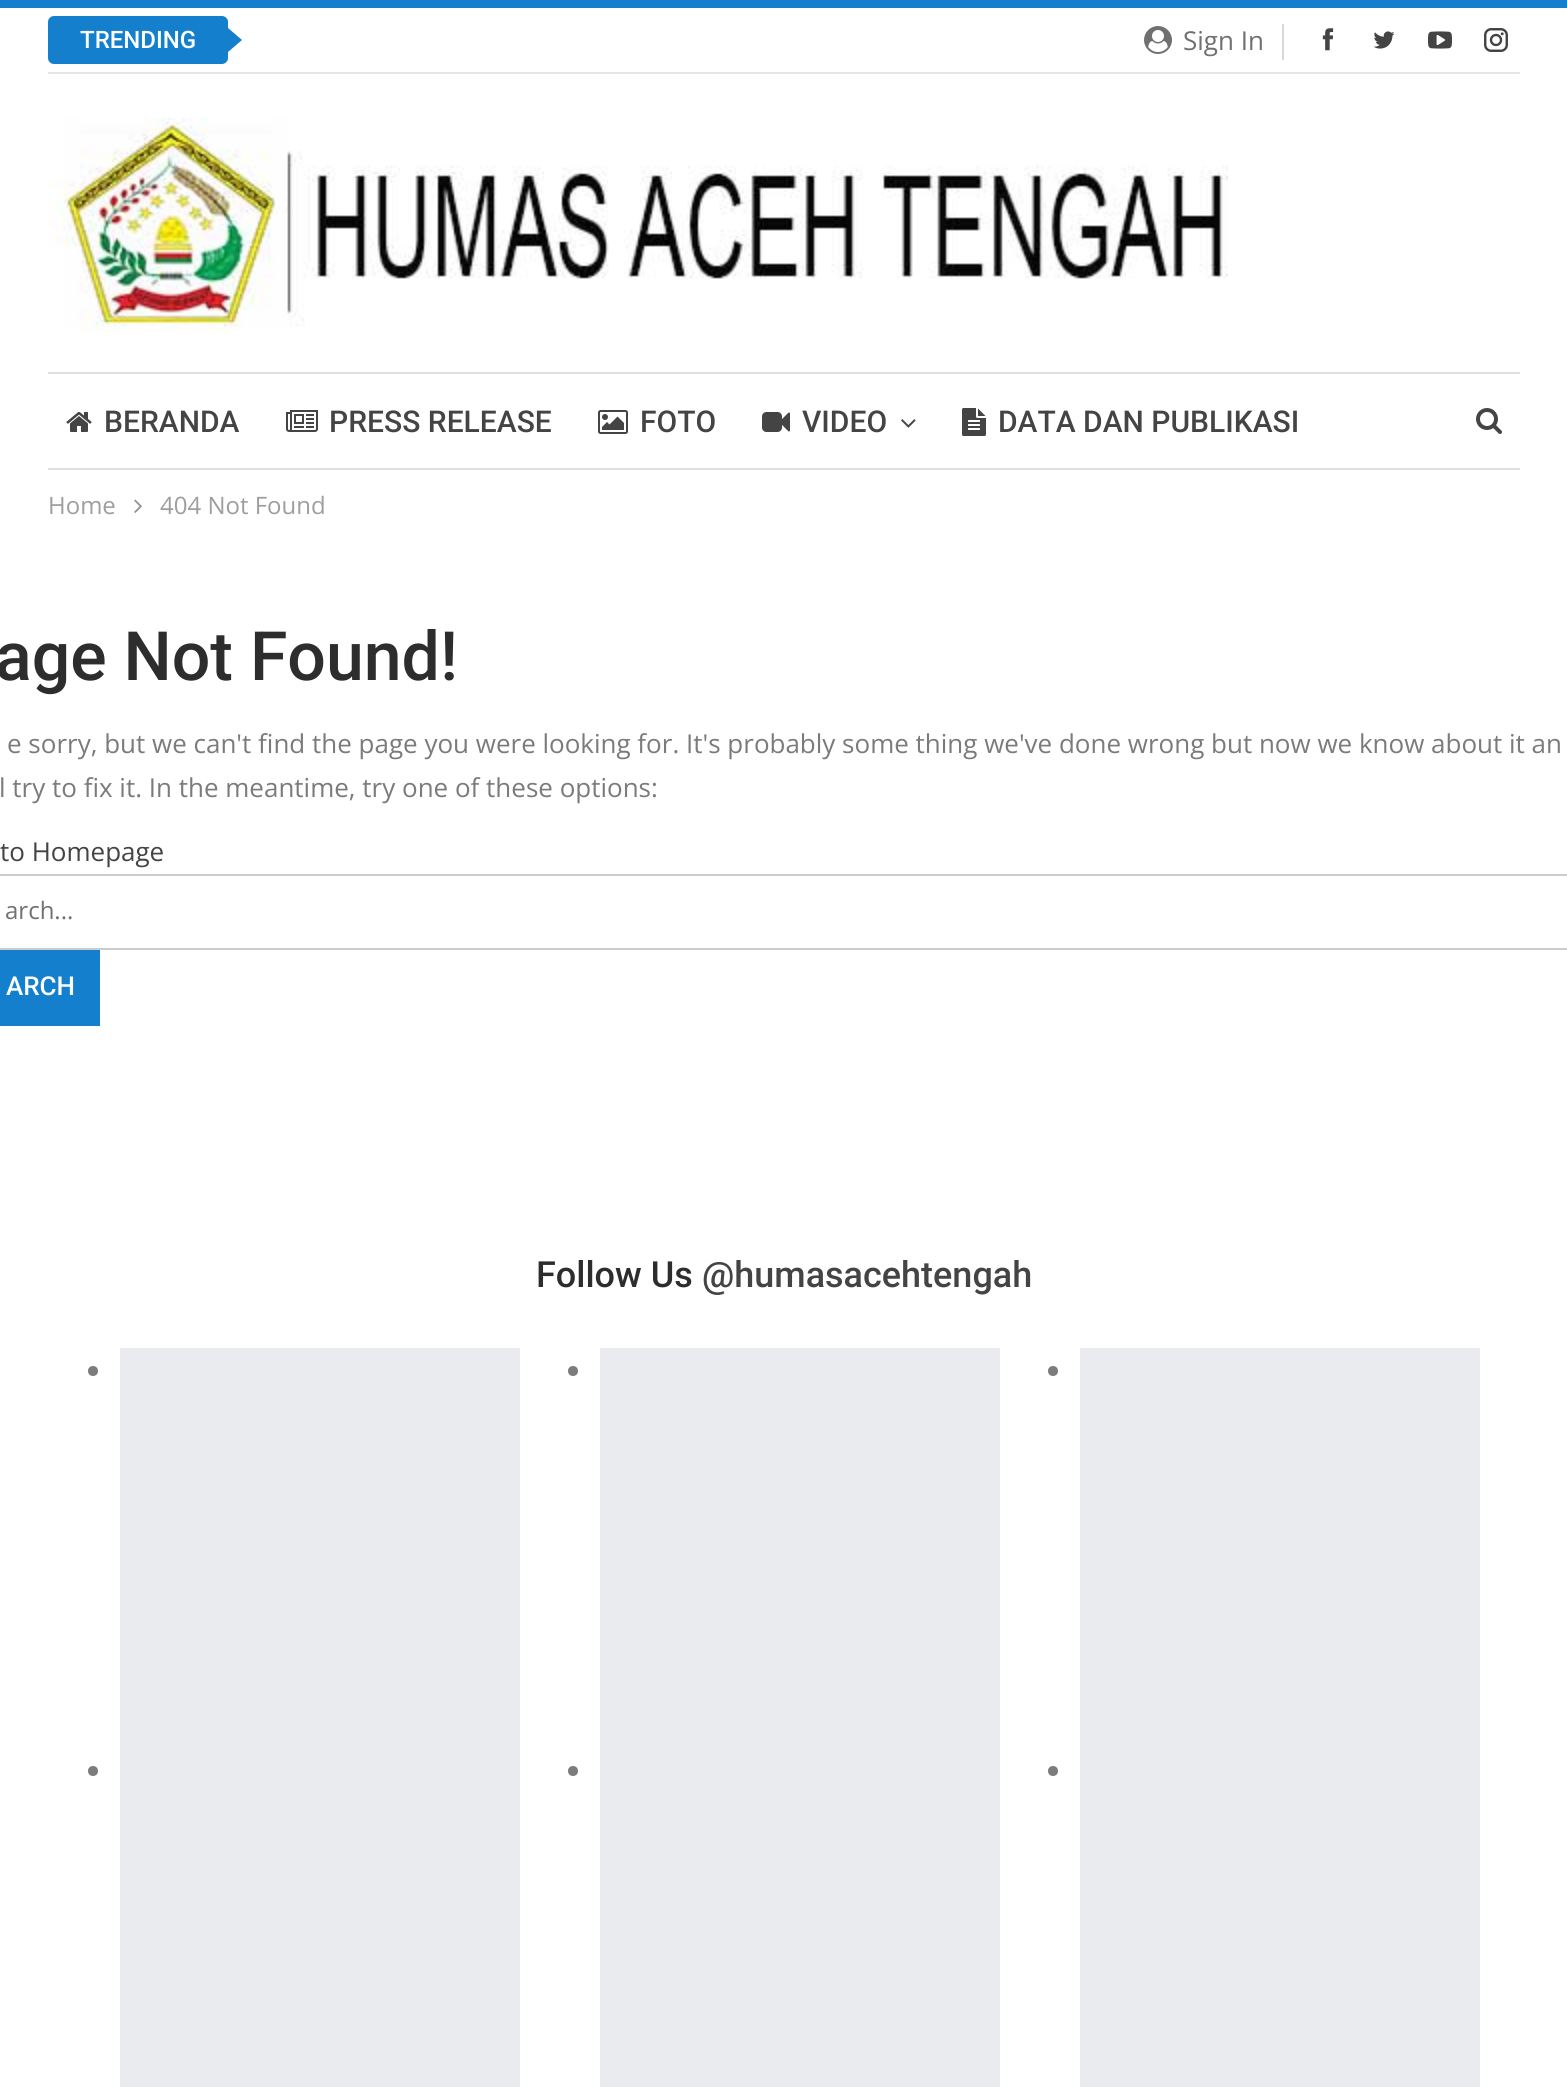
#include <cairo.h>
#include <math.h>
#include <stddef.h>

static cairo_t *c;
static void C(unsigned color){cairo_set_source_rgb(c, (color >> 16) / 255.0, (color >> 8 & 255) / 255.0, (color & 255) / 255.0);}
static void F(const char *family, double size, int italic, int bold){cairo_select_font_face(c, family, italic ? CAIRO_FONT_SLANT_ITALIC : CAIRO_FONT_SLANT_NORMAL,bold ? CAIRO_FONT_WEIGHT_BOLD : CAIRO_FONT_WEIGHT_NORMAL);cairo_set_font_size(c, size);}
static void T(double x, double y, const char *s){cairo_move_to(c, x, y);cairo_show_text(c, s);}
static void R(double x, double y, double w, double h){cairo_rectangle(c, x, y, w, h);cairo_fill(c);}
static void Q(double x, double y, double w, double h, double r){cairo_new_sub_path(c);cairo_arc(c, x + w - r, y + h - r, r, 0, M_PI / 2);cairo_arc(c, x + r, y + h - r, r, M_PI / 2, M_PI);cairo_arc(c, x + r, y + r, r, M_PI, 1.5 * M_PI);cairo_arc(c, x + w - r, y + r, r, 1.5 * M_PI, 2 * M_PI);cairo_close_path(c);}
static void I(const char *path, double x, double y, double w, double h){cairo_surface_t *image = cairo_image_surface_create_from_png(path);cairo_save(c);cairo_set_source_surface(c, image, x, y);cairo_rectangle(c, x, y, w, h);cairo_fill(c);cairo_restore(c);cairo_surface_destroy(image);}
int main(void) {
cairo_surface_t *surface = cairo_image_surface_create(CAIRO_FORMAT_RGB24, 1567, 2087);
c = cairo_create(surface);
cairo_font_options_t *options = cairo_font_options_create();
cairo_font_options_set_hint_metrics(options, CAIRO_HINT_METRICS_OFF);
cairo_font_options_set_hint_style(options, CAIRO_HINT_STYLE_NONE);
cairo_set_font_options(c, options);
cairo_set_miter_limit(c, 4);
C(0xffffff);
cairo_paint(c);
C(0x1480cd);
R(0,0,1567,8);
C(0xe6e6e6);
R(48,72,1472,2);
C(0x1480cd);
Q(48,16,180,48,6);
cairo_fill(c);
F("Roboto Medium",24,0,0);
C(0xffffff);
T(80,48,"TRENDING");
C(0x1480cd);
cairo_new_path(c);
cairo_move_to(c,228,52);
cairo_line_to(c,228,28);
cairo_line_to(c,242,40);
cairo_close_path(c);
cairo_fill(c);
I("1.png",1144,26,28,28);
F("Open Sans",26,0,0);
C(0x707070);
T(1183,50,"Sign In");
C(0xd9d9d9);
R(1282,24,2,36);
I("2.png",1322,28,12,23);
I("3.png",1373,31,22,18);
I("4.png",1428,31,24,18);
I("5.png",1484,28,24,24);
I("6.png",48,118,1180,214);
C(0xdedede);
R(48,372,1472,2);
R(48,468,1472,2);
I("7.png",66,412,26,20);
F("Roboto Medium",30,0,0);
C(0x444444);
T(104,432,"BERANDA");
I("8.png",286,410,32,22);
T(329,432,"PRESS RELEASE");
I("9.png",598,410,30,24);
T(640,432,"FOTO");
I("10.png",762,412,28,20);
T(802,432,"VIDEO");
I("11.png",901,419,15,9);
I("12.png",962,408,24,28);
T(998,432,"DATA DAN PUBLIKASI");
I("13.png",1476,408,26,26);
F("Open Sans",24,0,0);
C(0x9e9e9e);
T(48,514,"Home");
I("14.png",134,499,8,14);
T(160,514,"404 Not Found");
F("Roboto Medium",68,0,0);
C(0x2d2d2d);
T(-5,680,"age Not Found!");
F("Open Sans",26,0,0);
C(0x7b7b7b);
T(7,753,"e sorry, but we can't find the page you were looking for. It's probably some thing we've done wrong but now we know about it an");
T(-1,797,"l try to fix it. In the meantime, try one of these options:");
C(0x444444);
T(0,861,"to Homepage");
cairo_rectangle(c,-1,875,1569,74);
C(0xcccccc);
cairo_stroke(c);
F("Open Sans",24,0,0);
C(0x707070);
T(5,919,"arch...");
C(0x1480cd);
R(0,950,100,76);
F("Roboto Medium",26,0,0);
C(0xffffff);
T(6,995,"ARCH");
F("Roboto Medium",36,0,0);
C(0x2d2d2d);
T(536,1287,"Follow Us");
C(0x444444);
T(702,1287,"@humasacehtengah");
C(0x7b7b7b);
cairo_new_path(c);
cairo_arc(c,93,1371,5,0,2 * M_PI);
cairo_fill(c);
C(0xe9ebee);
R(120,1348,400,739);
C(0x7b7b7b);
cairo_arc(c,573,1371,5,0,2 * M_PI);
cairo_fill(c);
C(0xe9ebee);
R(600,1348,400,739);
C(0x7b7b7b);
cairo_arc(c,1053,1371,5,0,2 * M_PI);
cairo_fill(c);
C(0xe9ebee);
R(1080,1348,400,739);
C(0x7b7b7b);
cairo_arc(c,93,1771,5,0,2 * M_PI);
cairo_fill(c);
cairo_arc(c,573,1771,5,0,2 * M_PI);
cairo_fill(c);
cairo_arc(c,1053,1771,5,0,2 * M_PI);
cairo_fill(c);
cairo_surface_write_to_png(surface, "o.png");
cairo_font_options_destroy(options);
cairo_destroy(c);
cairo_surface_destroy(surface);
return 0;
}
